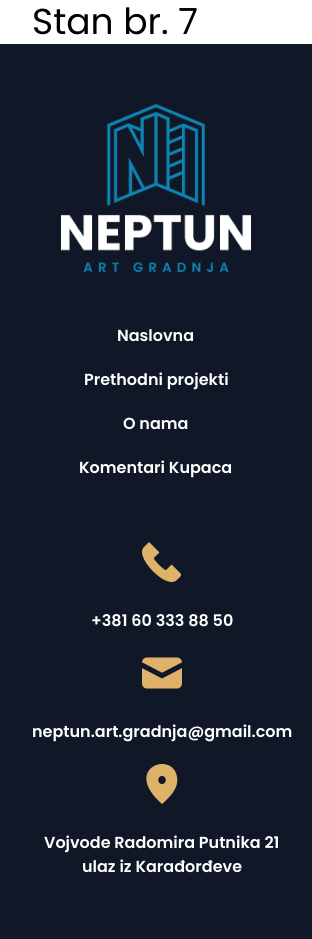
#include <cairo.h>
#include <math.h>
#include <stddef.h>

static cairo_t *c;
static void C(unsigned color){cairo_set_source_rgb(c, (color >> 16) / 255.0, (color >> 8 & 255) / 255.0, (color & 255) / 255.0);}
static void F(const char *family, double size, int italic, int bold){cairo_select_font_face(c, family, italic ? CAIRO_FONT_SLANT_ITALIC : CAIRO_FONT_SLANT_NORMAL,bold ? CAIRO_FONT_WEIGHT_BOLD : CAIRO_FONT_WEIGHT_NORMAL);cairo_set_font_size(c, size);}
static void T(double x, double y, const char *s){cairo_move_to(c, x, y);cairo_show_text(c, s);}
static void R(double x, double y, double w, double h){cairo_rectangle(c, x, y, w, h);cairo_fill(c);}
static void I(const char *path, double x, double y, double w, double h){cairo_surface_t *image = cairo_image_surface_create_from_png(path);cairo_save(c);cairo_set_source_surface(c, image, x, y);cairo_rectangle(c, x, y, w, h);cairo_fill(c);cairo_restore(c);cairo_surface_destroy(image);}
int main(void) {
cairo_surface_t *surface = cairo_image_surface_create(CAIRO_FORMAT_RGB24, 312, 939);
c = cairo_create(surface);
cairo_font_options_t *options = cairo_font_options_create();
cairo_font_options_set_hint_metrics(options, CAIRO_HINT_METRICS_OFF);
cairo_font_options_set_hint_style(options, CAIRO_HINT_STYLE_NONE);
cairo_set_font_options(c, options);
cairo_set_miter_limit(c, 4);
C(0xffffff);
cairo_paint(c);
F("Poppins",36,0,0);
C(0x000000);
T(32,34,"Stan br. 7");
C(0x101828);
R(0,44,312,895);
I("1.png",61,104,190,168);
F("Poppins SemiBold",16,0,0);
C(0xffffff);
T(117,341,"Naslovna");
T(84,385,"Prethodni projekti");
T(123,429,"O nama");
T(79,473,"Komentari Kupaca");
I("2.png",142,542,39,40);
T(91,626,"+381 60 333 88 50");
I("3.png",142,657,40,32);
T(32,737,"neptun.art.gradnja@gmail.com");
C(0xdeb269);
cairo_new_path(c);
cairo_move_to(c,162,784);
cairo_curve_to(c,167,784,167,776,162,776);
cairo_curve_to(c,157,776,157,784,162,784);
cairo_close_path(c);
cairo_move_to(c,162,804);
cairo_curve_to(c,121,768,173,750,177,777);
cairo_curve_to(c,179,788,170,797,162,804);
cairo_close_path(c);
cairo_fill(c);
C(0xffffff);
T(44,848,"Vojvode Radomira Putnika 21");
T(82,872,"ulaz iz Karađorđeve");
cairo_surface_write_to_png(surface, "o.png");
cairo_font_options_destroy(options);
cairo_destroy(c);
cairo_surface_destroy(surface);
return 0;
}
